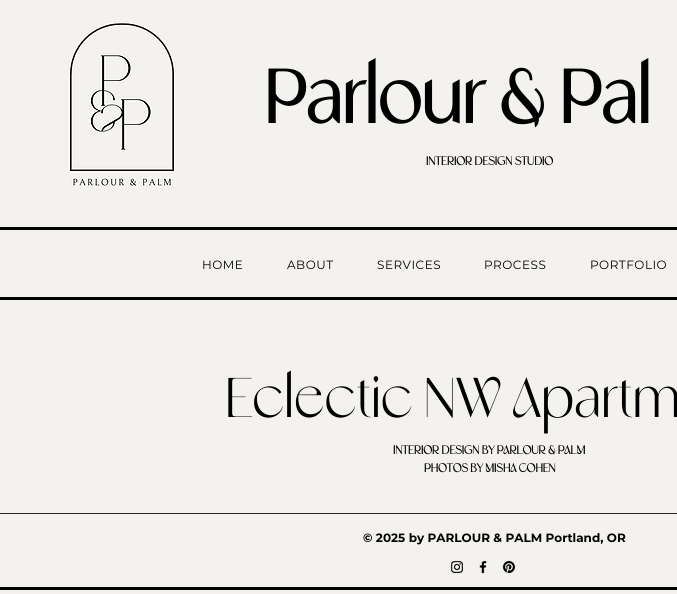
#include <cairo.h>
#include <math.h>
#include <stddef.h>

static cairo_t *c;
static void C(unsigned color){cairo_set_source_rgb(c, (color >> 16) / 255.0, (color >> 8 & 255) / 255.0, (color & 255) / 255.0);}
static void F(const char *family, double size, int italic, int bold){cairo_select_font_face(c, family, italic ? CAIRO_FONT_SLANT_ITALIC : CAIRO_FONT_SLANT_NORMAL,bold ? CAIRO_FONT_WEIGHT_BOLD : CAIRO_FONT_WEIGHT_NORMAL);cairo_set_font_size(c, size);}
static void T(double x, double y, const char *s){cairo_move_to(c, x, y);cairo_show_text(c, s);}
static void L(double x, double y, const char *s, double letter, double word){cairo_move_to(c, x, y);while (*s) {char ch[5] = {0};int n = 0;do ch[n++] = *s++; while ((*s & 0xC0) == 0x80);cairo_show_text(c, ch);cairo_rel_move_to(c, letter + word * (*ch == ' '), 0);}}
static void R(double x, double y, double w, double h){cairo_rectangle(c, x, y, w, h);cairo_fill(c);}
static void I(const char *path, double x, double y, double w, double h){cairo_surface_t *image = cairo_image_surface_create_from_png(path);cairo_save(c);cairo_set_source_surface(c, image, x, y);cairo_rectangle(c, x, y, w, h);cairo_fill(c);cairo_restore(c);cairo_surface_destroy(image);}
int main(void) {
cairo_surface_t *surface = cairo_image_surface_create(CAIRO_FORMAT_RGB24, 677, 594);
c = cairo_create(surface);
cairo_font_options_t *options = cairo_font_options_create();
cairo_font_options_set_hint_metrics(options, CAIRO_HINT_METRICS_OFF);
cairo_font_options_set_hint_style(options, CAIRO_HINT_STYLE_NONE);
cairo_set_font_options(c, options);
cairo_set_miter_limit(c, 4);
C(0xf4f2ef);
cairo_paint(c);
I("1.png",68,21,108,167);
F("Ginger",75,0,1);
C(0x000000);
T(264,123,"Parlour & Pal");
F("Ginger",12,0,1);
T(426,165,"INTERIOR DESIGN STUDIO");
R(0,227,677,3);
F("Montserrat",12,0,0);
L(202,269,"HOME",.5,0);
L(287,269,"ABOUT",.5,0);
L(377,269,"SERVICES",.5,0);
L(484,269,"PROCESS",.5,0);
L(590,269,"PORTFOLIO",.5,0);
R(0,297,677,3);
F("Ginger",56,0,0);
T(225,417,"Eclectic NW Apartm");
F("Ginger",12,0,1);
T(393,454,"INTERIOR DESIGN BY PARLOUR & PALM");
T(424,472,"PHOTOS BY MISHA COHEN");
C(0x282626);
R(0,513,677,1);
F("Montserrat",12,0,1);
C(0x000000);
T(363,542,"© 2025 by PARLOUR & PALM Portland, OR");
I("2.png",450,560,13,13);
I("3.png",479,560,8,14);
I("4.png",502,560,14,14);
R(0,587,677,3);
cairo_surface_write_to_png(surface, "o.png");
cairo_font_options_destroy(options);
cairo_destroy(c);
cairo_surface_destroy(surface);
return 0;
}
